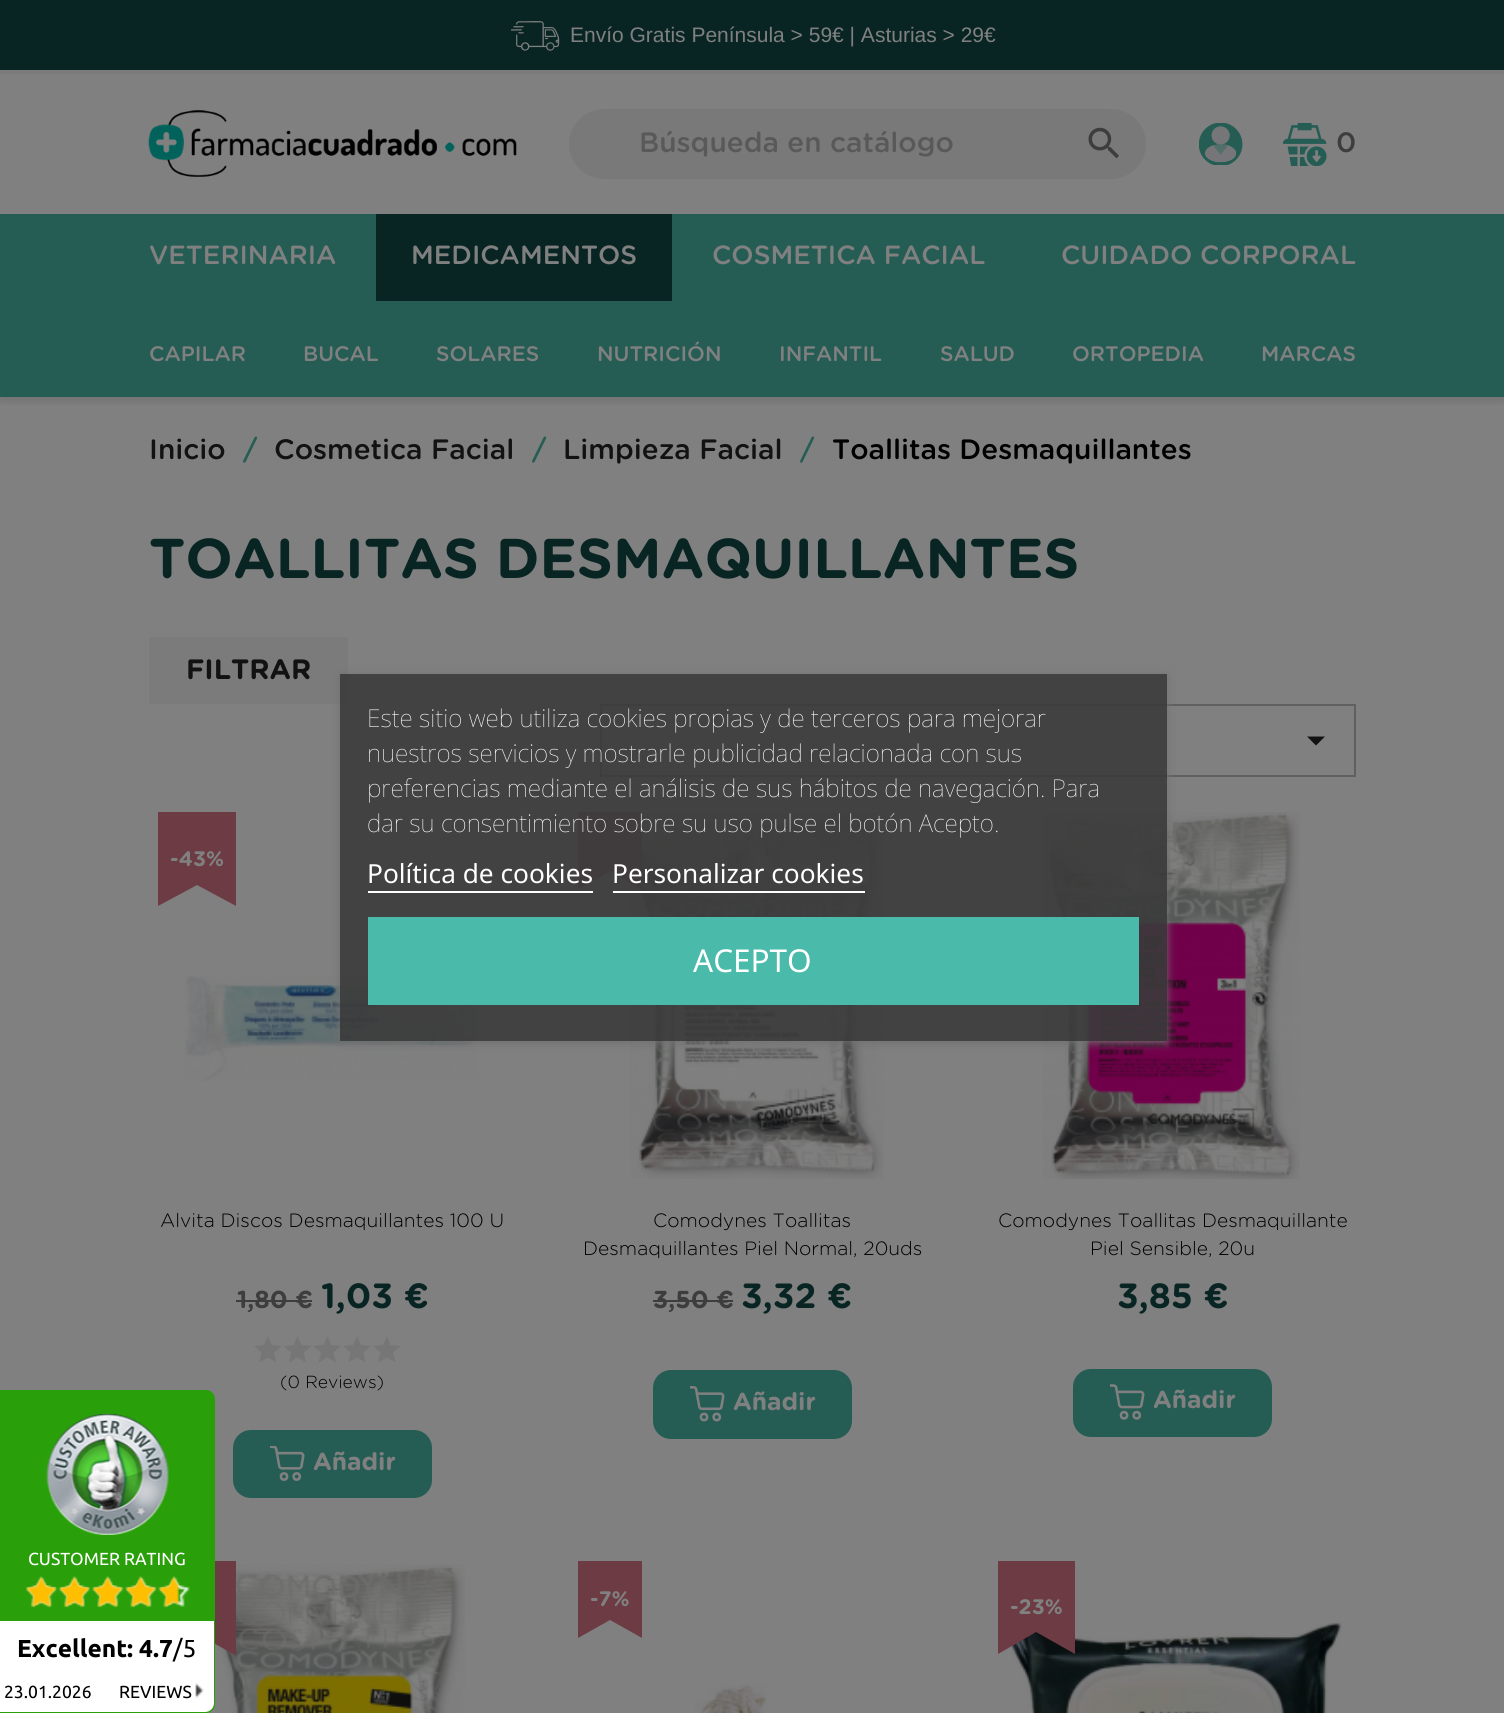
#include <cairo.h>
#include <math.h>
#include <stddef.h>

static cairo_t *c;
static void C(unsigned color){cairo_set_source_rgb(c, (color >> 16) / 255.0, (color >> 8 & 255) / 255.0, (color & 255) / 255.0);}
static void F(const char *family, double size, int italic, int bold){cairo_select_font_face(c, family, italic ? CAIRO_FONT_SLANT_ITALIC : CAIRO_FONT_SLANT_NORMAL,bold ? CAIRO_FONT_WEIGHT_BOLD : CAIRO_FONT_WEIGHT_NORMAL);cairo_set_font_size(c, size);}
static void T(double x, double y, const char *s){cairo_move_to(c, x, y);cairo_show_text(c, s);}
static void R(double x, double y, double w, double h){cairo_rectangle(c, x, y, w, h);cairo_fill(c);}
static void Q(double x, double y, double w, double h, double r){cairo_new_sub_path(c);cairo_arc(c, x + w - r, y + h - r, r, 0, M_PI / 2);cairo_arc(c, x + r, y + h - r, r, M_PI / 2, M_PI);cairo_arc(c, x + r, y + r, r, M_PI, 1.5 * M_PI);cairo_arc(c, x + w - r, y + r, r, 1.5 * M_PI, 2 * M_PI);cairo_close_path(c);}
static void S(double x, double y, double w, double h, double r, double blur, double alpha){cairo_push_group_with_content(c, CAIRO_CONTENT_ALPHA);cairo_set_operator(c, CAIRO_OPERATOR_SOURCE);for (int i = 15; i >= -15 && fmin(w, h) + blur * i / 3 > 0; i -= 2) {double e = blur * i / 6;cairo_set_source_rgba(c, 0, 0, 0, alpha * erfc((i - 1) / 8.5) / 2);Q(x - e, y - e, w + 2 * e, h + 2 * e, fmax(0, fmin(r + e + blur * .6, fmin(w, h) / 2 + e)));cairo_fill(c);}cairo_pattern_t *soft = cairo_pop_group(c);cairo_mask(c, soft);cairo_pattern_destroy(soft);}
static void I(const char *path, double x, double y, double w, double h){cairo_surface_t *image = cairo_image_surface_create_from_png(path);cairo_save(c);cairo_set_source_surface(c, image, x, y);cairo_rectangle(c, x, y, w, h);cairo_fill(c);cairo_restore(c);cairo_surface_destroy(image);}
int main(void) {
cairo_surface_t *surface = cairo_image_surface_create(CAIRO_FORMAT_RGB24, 1504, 1713);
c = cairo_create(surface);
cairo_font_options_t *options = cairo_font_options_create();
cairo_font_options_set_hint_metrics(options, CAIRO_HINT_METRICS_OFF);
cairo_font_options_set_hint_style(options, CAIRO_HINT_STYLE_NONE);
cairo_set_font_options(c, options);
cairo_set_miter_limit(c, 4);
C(0x808080);
cairo_paint(c);
cairo_save(c);
cairo_rectangle(c,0,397,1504,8);
cairo_clip(c);
C(0x000000);
S(0,4,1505,397,0,4.5,.11);
cairo_restore(c);
C(0x082523);
R(0,0,1504,70);
C(0x7b7b7b);
R(0,70,1504,4);
I("1.png",511,21,49,30);
F("Liberation Sans",21,0,0);
C(0x808080);
T(570,42,"Envío Gratis Península > 59€ | Asturias > 29€");
I("2.png",148,110,369,67);
C(0x797979);
Q(569,109,577,70,35);
cairo_fill(c);
F("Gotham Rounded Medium",28,0,0);
C(0x595959);
T(639,152,"Búsqueda en catálogo");
I("3.png",1088,127,31,32);
C(0x7b7b7b);
R(149,637,199,67);
cairo_rectangle(c,601,705,754,71);
C(0x606060);
cairo_stroke(c);
I("10.png",185,976,292,105);
I("12.png",630,813,254,366);
C(0x6d3b43);
cairo_new_path(c);
cairo_move_to(c,642,889);
cairo_line_to(c,610,871);
cairo_line_to(c,578,889);
cairo_line_to(c,578,812);
cairo_line_to(c,642,812);
cairo_close_path(c);
cairo_fill(c);
I("14.png",1043,812,257,368);
cairo_save(c);
cairo_set_fill_rule(c,CAIRO_FILL_RULE_EVEN_ODD);
cairo_new_path(c);
cairo_move_to(c,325,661);
cairo_line_to(c,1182,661);
cairo_line_to(c,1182,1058);
cairo_line_to(c,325,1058);
cairo_close_path(c);
cairo_move_to(c,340,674);
cairo_line_to(c,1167,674);
cairo_line_to(c,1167,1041);
cairo_line_to(c,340,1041);
cairo_close_path(c);
cairo_clip(c);
C(0x707070);
S(340,676,827,367,0,4.5,1);
cairo_restore(c);
cairo_set_source_rgba(c,0.231,0.231,0.231,0.9);
R(340,674,827,367);
F("Noto Sans Thin",24.5,0,0);
C(0xffffff);
T(367,727,"Este sitio web utiliza cookies propias y de terceros para mejorar");
T(367,762,"nuestros servicios y mostrarle publicidad relacionada con sus");
T(367,797,"preferencias mediante el análisis de sus hábitos de navegación. Para");
T(367,832,"dar su consentimiento sobre su uso pulse el botón Acepto.");
F("Noto Sans",26.25,0,0);
T(367,883,"Política de cookies");
R(368,891,225,2);
T(612,883,"Personalizar cookies");
R(613,891,252,2);
C(0x4abaaa);
R(368,917,771,88);
F("Noto Sans",31.5,0,0);
C(0xffffff);
T(693,972,"ACEPTO");
I("4.png",1199,123,44,42);
I("5.png",1283,123,44,43);
F("Gotham Rounded Medium",28,0,0);
C(0x3d3d3d);
T(1336,152,"0");
C(0x255d55);
R(0,214,1504,183);
F("Gotham Rounded Medium",26.25,0,0);
C(0x808080);
T(149,264,"VETERINARIA");
C(0x082523);
R(376,214,296,87);
C(0x808080);
T(411,264,"MEDICAMENTOS");
T(712,264,"COSMETICA FACIAL");
T(1061,264,"CUIDADO CORPORAL");
F("Gotham Rounded Medium",21,0,0);
T(149,361,"CAPILAR");
T(303,361,"BUCAL");
T(436,361,"SOLARES");
T(597,361,"NUTRICIÓN");
T(779,361,"INFANTIL");
T(940,361,"SALUD");
T(1072,361,"ORTOPEDIA");
T(1261,361,"MARCAS");
I("16.png",211,1564,254,149);
cairo_save(c);
cairo_rectangle(c,158,1561,78,95);
cairo_clip(c);
C(0x6d3b43);
cairo_new_path(c);
cairo_move_to(c,237,1656);
cairo_line_to(c,197,1634);
cairo_line_to(c,158,1656);
cairo_line_to(c,158,1561);
cairo_line_to(c,237,1561);
cairo_close_path(c);
cairo_fill(c);
cairo_restore(c);
C(0x29a00a);
cairo_new_path(c);
cairo_move_to(c,0,1390);
cairo_line_to(c,206,1390);
cairo_curve_to(c,211,1390,215,1394,215,1399);
cairo_line_to(c,215,1704);
cairo_curve_to(c,215,1709,211,1713,206,1713);
cairo_line_to(c,0,1713);
cairo_close_path(c);
cairo_fill(c);
I("6.png",46,1414,123,121);
F("Ubuntu",17.5,0,0);
C(0xffffff);
T(28,1565,"CUSTOMER RATING");
I("7.png",25,1576,165,31);
I("8.png",26,1576,153,32);
cairo_new_path(c);
cairo_move_to(c,0,1621);
cairo_line_to(c,214,1621);
cairo_line_to(c,214,1703);
cairo_curve_to(c,214,1708,210,1712,205,1712);
cairo_line_to(c,0,1712);
cairo_close_path(c);
cairo_fill(c);
F("Ubuntu",24.5,0,1);
C(0x000000);
T(17,1657,"Excellent: 4.7");
F("Ubuntu",24.5,0,0);
T(173,1657,"/5");
F("Ubuntu",17.5,0,0);
T(4,1698,"23.01.2026");
T(119,1698,"REVIEWS");
I("9.png",195,1683,9,15);
F("Gotham Rounded Medium",28,0,0);
C(0x121212);
T(149,459,"Inicio");
C(0x255d55);
T(243,459,"/");
C(0x121212);
T(274,459,"Cosmetica Facial");
C(0x255d55);
T(532,459,"/");
C(0x121212);
T(563,459,"Limpieza Facial");
C(0x255d55);
T(800,459,"/");
C(0x000000);
T(832,459,"Toallitas Desmaquillantes");
F("Gotham Rounded",56,0,1);
C(0x082523);
T(149,578,"TOALLITAS DESMAQUILLANTES");
F("Gotham Rounded",28,0,1);
C(0x121212);
T(186,679,"FILTRAR");
cairo_new_path(c);
cairo_move_to(c,1307,736.5);
cairo_line_to(c,1325,736.5);
cairo_line_to(c,1316,745.5);
cairo_close_path(c);
cairo_fill(c);
C(0x6d3b43);
cairo_new_path(c);
cairo_move_to(c,236,906);
cairo_line_to(c,197,885);
cairo_line_to(c,158,906);
cairo_line_to(c,158,812);
cairo_line_to(c,236,812);
cairo_close_path(c);
cairo_fill(c);
F("Gotham Rounded",21,0,1);
C(0x808080);
T(170,866,"-43%");
F("Gotham Rounded Light",19.25,0,0);
C(0x000000);
T(160,1227,"Alvita Discos Desmaquillantes 100 U");
F("Gotham Rounded",24.5,0,1);
C(0x3d3d3d);
T(237,1308,"1,80 €");
R(236,1300,76,2);
F("Gotham Rounded",35,0,1);
C(0x082523);
T(321,1308,"1,03 €");
C(0x767676);
cairo_new_path(c);
cairo_move_to(c,271.5,1345);
cairo_line_to(c,282,1346);
cairo_line_to(c,274,1352.5);
cairo_line_to(c,276.5,1362.5);
cairo_line_to(c,268,1357.5);
cairo_line_to(c,259,1362.5);
cairo_line_to(c,261.5,1352.5);
cairo_line_to(c,254,1346);
cairo_line_to(c,264,1345);
cairo_line_to(c,268,1336);
cairo_close_path(c);
cairo_move_to(c,301.5,1345);
cairo_line_to(c,311.5,1346);
cairo_line_to(c,304,1352.5);
cairo_line_to(c,306,1362.5);
cairo_line_to(c,297.5,1357.5);
cairo_line_to(c,289,1362.5);
cairo_line_to(c,291,1352.5);
cairo_line_to(c,283.5,1346);
cairo_line_to(c,293.5,1345);
cairo_line_to(c,297.5,1336);
cairo_close_path(c);
cairo_fill(c);
cairo_new_path(c);
cairo_move_to(c,331,1345);
cairo_line_to(c,341,1346);
cairo_line_to(c,333.5,1352.5);
cairo_line_to(c,336,1362.5);
cairo_line_to(c,327.5,1357.5);
cairo_line_to(c,318.5,1362.5);
cairo_line_to(c,321,1352.5);
cairo_line_to(c,313,1346);
cairo_line_to(c,323.5,1345);
cairo_line_to(c,327.5,1336);
cairo_close_path(c);
cairo_move_to(c,361,1345);
cairo_line_to(c,371,1346);
cairo_line_to(c,363.5,1352.5);
cairo_line_to(c,365.5,1362.5);
cairo_line_to(c,357,1357.5);
cairo_line_to(c,348.5,1362.5);
cairo_line_to(c,350.5,1352.5);
cairo_line_to(c,343,1346);
cairo_line_to(c,353,1345);
cairo_line_to(c,357,1336);
cairo_close_path(c);
cairo_fill(c);
cairo_new_path(c);
cairo_move_to(c,390.5,1345);
cairo_line_to(c,401,1346);
cairo_line_to(c,393,1352.5);
cairo_line_to(c,395.5,1362.5);
cairo_line_to(c,387,1357.5);
cairo_line_to(c,378,1362.5);
cairo_line_to(c,380.5,1352.5);
cairo_line_to(c,373,1346);
cairo_line_to(c,383,1345);
cairo_line_to(c,387,1336);
cairo_close_path(c);
cairo_fill(c);
F("Gotham Rounded Light",17.5,0,0);
C(0x000000);
T(280,1388,"(0 Reviews)");
C(0x255d55);
Q(233,1430,199,68,18);
cairo_fill(c);
I("11.png",270,1446,35,35);
F("Gotham Rounded",24.5,0,1);
C(0x808080);
T(313,1470,"Añadir");
F("Gotham Rounded Light",19.25,0,0);
C(0x000000);
T(653,1227,"Comodynes Toallitas");
T(583,1255,"Desmaquillantes Piel Normal, 20uds");
F("Gotham Rounded",24.5,0,1);
C(0x3d3d3d);
T(653,1308,"3,50 €");
R(653,1300,80,2);
F("Gotham Rounded",35,0,1);
C(0x082523);
T(741,1308,"3,32 €");
C(0x255d55);
Q(653,1370,199,69,18);
cairo_fill(c);
I("13.png",690,1386,35,36);
F("Gotham Rounded",24.5,0,1);
C(0x808080);
T(733,1410,"Añadir");
F("Gotham Rounded Light",19.25,0,0);
C(0x000000);
T(998,1227,"Comodynes Toallitas Desmaquillante");
T(1090,1255,"Piel Sensible, 20u");
F("Gotham Rounded",35,0,1);
C(0x082523);
T(1117,1308,"3,85 €");
C(0x255d55);
Q(1073,1369,199,68,18);
cairo_fill(c);
I("15.png",1110,1384,35,36);
F("Gotham Rounded",24.5,0,1);
C(0x808080);
T(1153,1408,"Añadir");
C(0x6d3b43);
cairo_new_path(c);
cairo_move_to(c,642,1638);
cairo_line_to(c,610,1620);
cairo_line_to(c,578,1638);
cairo_line_to(c,578,1561);
cairo_line_to(c,642,1561);
cairo_close_path(c);
cairo_fill(c);
F("Gotham Rounded",21,0,1);
C(0x808080);
T(590,1606,"-7%");
I("17.png",694,1685,73,28);
I("18.png",1002,1620,340,93);
C(0x6d3b43);
cairo_new_path(c);
cairo_move_to(c,1075,1654);
cairo_line_to(c,1036,1632);
cairo_line_to(c,998,1654);
cairo_line_to(c,998,1561);
cairo_line_to(c,1075,1561);
cairo_close_path(c);
cairo_fill(c);
C(0x808080);
T(1010,1614,"-23%");
cairo_surface_write_to_png(surface, "o.png");
cairo_font_options_destroy(options);
cairo_destroy(c);
cairo_surface_destroy(surface);
return 0;
}
